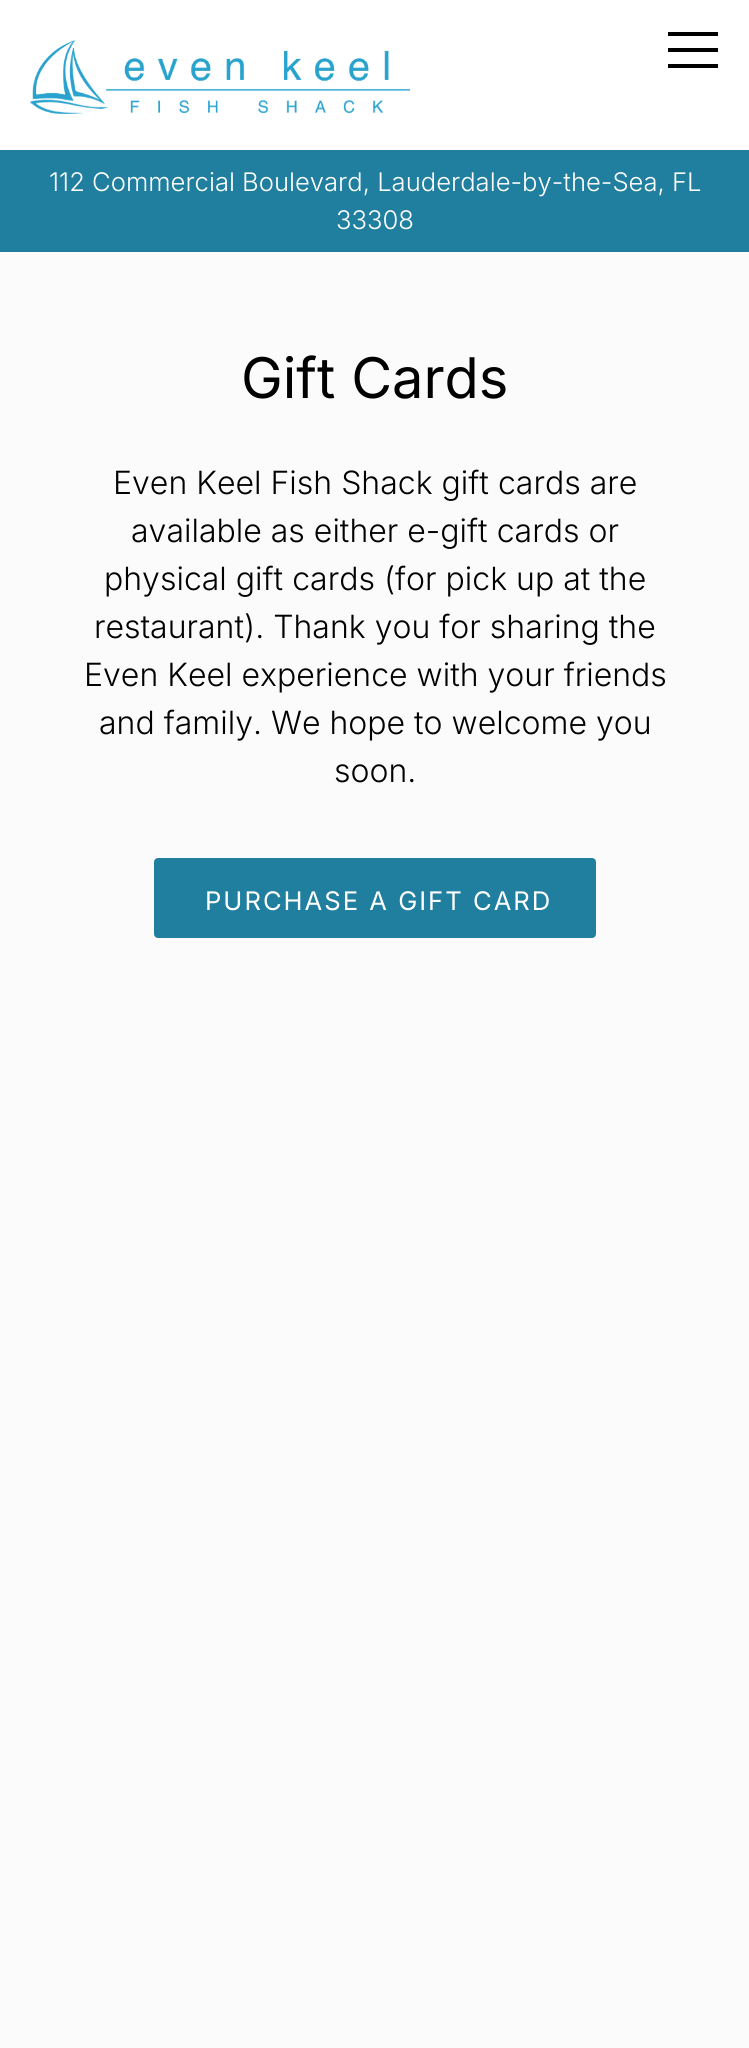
#include <cairo.h>
#include <math.h>
#include <stddef.h>

static cairo_t *c;
static void C(unsigned color){cairo_set_source_rgb(c, (color >> 16) / 255.0, (color >> 8 & 255) / 255.0, (color & 255) / 255.0);}
static void F(const char *family, double size, int italic, int bold){cairo_select_font_face(c, family, italic ? CAIRO_FONT_SLANT_ITALIC : CAIRO_FONT_SLANT_NORMAL,bold ? CAIRO_FONT_WEIGHT_BOLD : CAIRO_FONT_WEIGHT_NORMAL);cairo_set_font_size(c, size);}
static void T(double x, double y, const char *s){cairo_move_to(c, x, y);cairo_show_text(c, s);}
static void L(double x, double y, const char *s, double letter, double word){cairo_move_to(c, x, y);while (*s) {char ch[5] = {0};int n = 0;do ch[n++] = *s++; while ((*s & 0xC0) == 0x80);cairo_show_text(c, ch);cairo_rel_move_to(c, letter + word * (*ch == ' '), 0);}}
static void R(double x, double y, double w, double h){cairo_rectangle(c, x, y, w, h);cairo_fill(c);}
static void Q(double x, double y, double w, double h, double r){cairo_new_sub_path(c);cairo_arc(c, x + w - r, y + h - r, r, 0, M_PI / 2);cairo_arc(c, x + r, y + h - r, r, M_PI / 2, M_PI);cairo_arc(c, x + r, y + r, r, M_PI, 1.5 * M_PI);cairo_arc(c, x + w - r, y + r, r, 1.5 * M_PI, 2 * M_PI);cairo_close_path(c);}
static void I(const char *path, double x, double y, double w, double h){cairo_surface_t *image = cairo_image_surface_create_from_png(path);cairo_save(c);cairo_set_source_surface(c, image, x, y);cairo_rectangle(c, x, y, w, h);cairo_fill(c);cairo_restore(c);cairo_surface_destroy(image);}
int main(void) {
cairo_surface_t *surface = cairo_image_surface_create(CAIRO_FORMAT_RGB24, 749, 2048);
c = cairo_create(surface);
cairo_font_options_t *options = cairo_font_options_create();
cairo_font_options_set_hint_metrics(options, CAIRO_HINT_METRICS_OFF);
cairo_font_options_set_hint_style(options, CAIRO_HINT_STYLE_NONE);
cairo_set_font_options(c, options);
cairo_set_miter_limit(c, 4);
C(0xfbfbfb);
cairo_paint(c);
C(0xffffff);
R(0,0,749,150);
I("1.png",30,40,380,74);
C(0x000000);
R(668,32,50,4);
R(668,48,50,4);
R(668,64,50,4);
C(0x207e9f);
R(0,150,749,102);
F("Inter Light",25.6,0,0);
C(0xffffff);
T(49,191,"112 Commercial Boulevard, Lauderdale-by-the-Sea, FL");
T(336,229,"33308");
F("Inter",56,0,0);
C(0x000000);
T(241,398,"Gift Cards");
F("Inter Light",32,0,0);
T(113,494,"Even Keel Fish Shack gift cards are");
T(131,542,"available as either e-gift cards or");
T(104,590,"physical gift cards (for pick up at the");
T(94,638,"restaurant). Thank you for sharing the");
T(84,686,"Even Keel experience with your friends");
T(99,734,"and family. We hope to welcome you");
T(334,782,"soon.");
C(0x207e9f);
Q(155,859,440,78,3);
cairo_fill_preserve(c);
cairo_stroke(c);
F("Inter",25.6,0,0);
C(0xffffff);
L(205,910,"PURCHASE A GIFT CARD",2,0);
cairo_surface_write_to_png(surface, "o.png");
cairo_font_options_destroy(options);
cairo_destroy(c);
cairo_surface_destroy(surface);
return 0;
}
